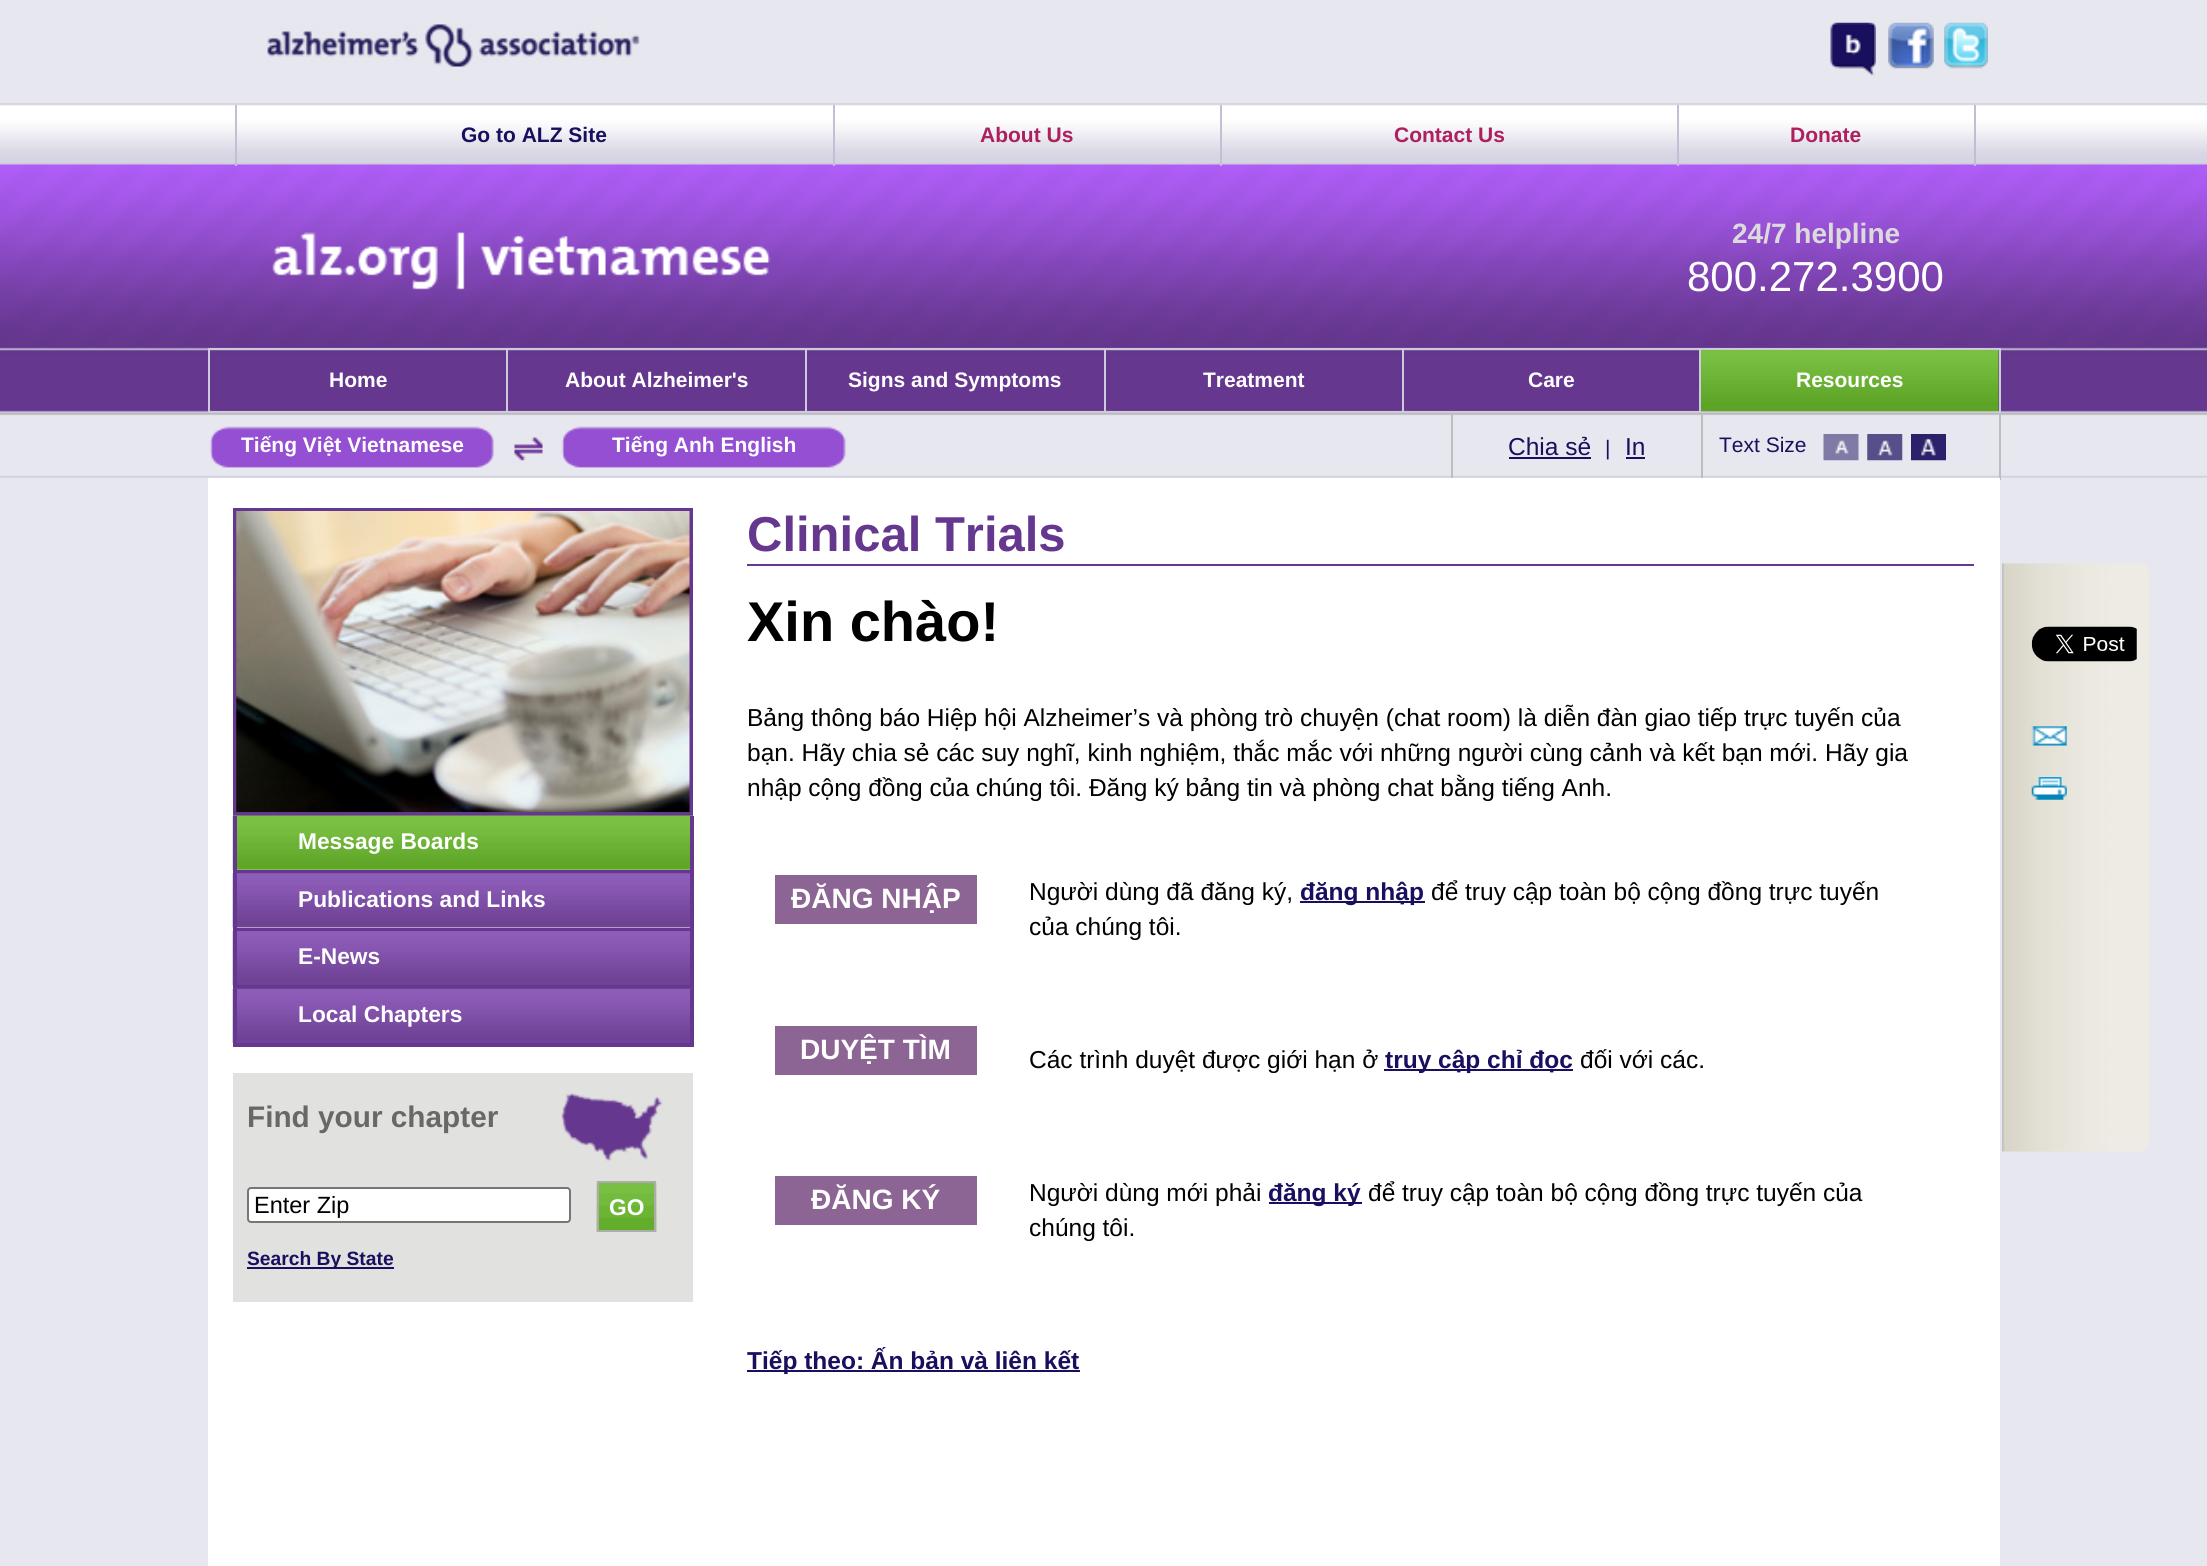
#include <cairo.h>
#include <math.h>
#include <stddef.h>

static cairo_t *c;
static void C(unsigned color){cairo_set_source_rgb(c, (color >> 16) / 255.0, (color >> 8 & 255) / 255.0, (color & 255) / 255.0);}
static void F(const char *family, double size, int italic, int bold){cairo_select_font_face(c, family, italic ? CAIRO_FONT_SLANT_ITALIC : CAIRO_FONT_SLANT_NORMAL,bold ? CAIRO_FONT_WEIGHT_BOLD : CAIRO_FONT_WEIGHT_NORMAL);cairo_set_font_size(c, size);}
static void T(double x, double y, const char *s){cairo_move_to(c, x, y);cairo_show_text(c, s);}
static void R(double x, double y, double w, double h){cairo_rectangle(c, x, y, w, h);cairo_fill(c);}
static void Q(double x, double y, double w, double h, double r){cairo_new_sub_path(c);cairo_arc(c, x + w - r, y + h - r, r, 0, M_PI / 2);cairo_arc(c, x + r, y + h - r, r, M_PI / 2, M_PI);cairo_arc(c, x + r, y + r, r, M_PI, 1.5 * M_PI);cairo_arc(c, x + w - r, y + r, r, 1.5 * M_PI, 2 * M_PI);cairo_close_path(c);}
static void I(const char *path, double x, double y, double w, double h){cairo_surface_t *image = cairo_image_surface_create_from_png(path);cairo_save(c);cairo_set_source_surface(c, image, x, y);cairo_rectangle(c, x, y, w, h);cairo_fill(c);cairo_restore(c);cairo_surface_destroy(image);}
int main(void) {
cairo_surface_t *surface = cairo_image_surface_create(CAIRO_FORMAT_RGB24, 2207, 1566);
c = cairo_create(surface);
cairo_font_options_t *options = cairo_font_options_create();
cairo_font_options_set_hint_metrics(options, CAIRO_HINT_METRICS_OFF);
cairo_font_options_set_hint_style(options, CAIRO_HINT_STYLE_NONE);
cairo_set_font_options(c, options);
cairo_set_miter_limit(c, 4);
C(0xe7e7ef);
cairo_paint(c);
I("1.png",0,103,2207,375);
I("2.png",267,24,373,43);
I("3.png",1830,22,46,54);
I("4.png",1888,22,46,47);
I("5.png",1944,22,44,47);
I("6.png",2002,563,147,589);
I("7.png",2031,626,106,36);
I("8.png",2031,726,36,20);
I("9.png",2031,777,36,23);
C(0xc3c0d5);
R(235,105,2,61);
F("Liberation Sans",21,0,1);
C(0x180f5e);
T(461,142,"Go to ALZ Site");
C(0xc3c0d5);
R(833,105,2,61);
C(0xad205d);
T(980,142,"About Us");
C(0xc3c0d5);
R(1220,105,2,61);
C(0xad205d);
T(1394,142,"Contact Us");
C(0xc1bdd3);
R(1974,105,2,61);
C(0xc3c0d5);
R(1677,105,2,61);
C(0xad205d);
T(1790,142,"Donate");
I("10.png",272,232,499,58);
F("Liberation Sans",28,0,1);
C(0xdbdbdb);
T(1732,243,"24/7 helpline");
F("Liberation Sans",42,0,0);
C(0xffffff);
T(1687,291,"800.272.3900");
C(0xcdcadb);
R(208,348,1792,2);
R(1999,348,2,65);
R(208,411,1792,2);
R(208,348,2,65);
R(506,348,2,65);
F("Liberation Sans",21,0,1);
C(0xffffff);
T(329,387,"Home");
C(0xcdcadb);
R(805,348,2,65);
C(0xffffff);
T(565,387,"About Alzheimer's");
C(0xcdcadb);
R(1104,348,2,65);
C(0xffffff);
T(848,387,"Signs and Symptoms");
C(0xcdcadb);
R(1402,348,2,65);
C(0xffffff);
T(1203,387,"Treatment");
C(0xcdcadb);
R(1699,348,2,65);
C(0xffffff);
T(1528,387,"Care");
I("11.png",1701,350,298,62);
T(1796,387,"Resources");
I("12.png",209,426,285,42);
T(241,452,"Tiếng Việt Vietnamese");
I("13.png",514,437,29,24);
I("14.png",561,426,285,42);
T(612,452,"Tiếng Anh English");
C(0xbcbcc1);
R(1701,415,2,65);
R(1451,415,2,65);
F("Liberation Sans",24.5,0,0);
C(0x180f5e);
T(1508,455,"Chia sẻ");
R(1509,457,82,2);
F("Liberation Sans",21,0,0);
T(1605,455,"|");
F("Liberation Sans",24.5,0,0);
T(1625,455,"In");
R(1626,457,19,2);
C(0xbcbcc1);
R(1999,415,2,65);
F("Liberation Sans",21,0,0);
C(0x180f5e);
T(1719,452,"Text Size");
I("15.png",1823,434,36,27);
I("16.png",1867,434,36,27);
I("17.png",1911,434,35,27);
C(0xffffff);
R(208,478,1792,1088);
cairo_rectangle(c,235,510,456,304);
C(0x65378e);
cairo_set_line_width(c,4);
cairo_stroke(c);
I("18.png",236,511,454,301);
I("19.png",232,815,461,55);
R(690,816,4,57);
R(233,870,460,4);
R(233,816,4,57);
F("Liberation Sans",22.75,0,1);
C(0xffffff);
T(298,849,"Message Boards");
I("20.png",232,873,458,55);
C(0x65378e);
R(690,873,4,116);
R(233,928,460,3);
R(233,873,4,58);
C(0xffffff);
T(298,907,"Publications and Links");
I("21.png",232,931,458,55);
C(0x65378e);
R(233,985,460,4);
R(233,931,4,58);
C(0xffffff);
T(298,964,"E-News");
I("22.png",232,988,461,55);
C(0x65378e);
R(690,989,4,58);
R(233,1043,460,4);
R(233,989,4,58);
C(0xffffff);
T(298,1022,"Local Chapters");
C(0xe1e1e0);
R(233,1073,460,229);
F("Liberation Sans",29.75,0,1);
C(0x686868);
T(247,1127,"Find your chapter");
I("23.png",561,1093,101,68);
C(0xffffff);
Q(248,1188,322,34,3);
cairo_fill_preserve(c);
C(0x767676);
cairo_set_line_width(c,2);
cairo_stroke(c);
F("Liberation Sans",23.5,0,0);
C(0x000000);
T(254,1213,"Enter Zip");
I("24.png",596,1183,61,49);
cairo_rectangle(c,598,1182,57,49);
C(0xacacab);
cairo_stroke(c);
F("Liberation Sans",22.75,0,1);
C(0xffffff);
T(609,1215,"GO");
C(0x180f5e);
R(247,1267,147,2);
F("Liberation Sans",19.25,0,1);
T(247,1265,"Search By State");
C(0x65378e);
R(747,564,1227,2);
F("Liberation Sans",49,0,1);
T(747,551,"Clinical Trials");
F("Liberation Sans",56,0,1);
C(0x000000);
T(747,641,"Xin chào!");
F("Liberation Sans",24.5,0,0);
T(747,726,"Bảng thông báo Hiệp hội Alzheimer’s và phòng trò chuyện (chat room) là diễn đàn giao tiếp trực tuyến của");
T(747,761,"bạn. Hãy chia sẻ các suy nghĩ, kinh nghiệm, thắc mắc với những người cùng cảnh và kết bạn mới. Hãy gia");
T(747,796,"nhập cộng đồng của chúng tôi. Đăng ký bảng tin và phòng chat bằng tiếng Anh.");
C(0x8c6594);
R(775,875,202,49);
F("Liberation Sans",28,0,1);
C(0xffffff);
T(791,908,"ĐĂNG NHẬP");
F("Liberation Sans",24.5,0,0);
C(0x000000);
T(1029,900,"Người dùng đã đăng ký,");
C(0x180f5e);
R(1300,901,125,2);
F("Liberation Sans",24.5,0,1);
T(1300,900,"đăng nhập");
F("Liberation Sans",24.5,0,0);
C(0x000000);
T(1431,900,"để truy cập toàn bộ cộng đồng trực tuyến");
T(1029,935,"của chúng tôi.");
C(0x8c6594);
R(775,1026,202,49);
F("Liberation Sans",28,0,1);
C(0xffffff);
T(800,1059,"DUYỆT TÌM");
F("Liberation Sans",24.5,0,0);
C(0x000000);
T(1029,1068,"Các trình duyệt được giới hạn ở");
C(0x180f5e);
R(1384,1069,189,2);
F("Liberation Sans",24.5,0,1);
T(1385,1068,"truy cập chỉ đọc");
F("Liberation Sans",24.5,0,0);
C(0x000000);
T(1580,1068,"đối với các.");
C(0x8c6594);
R(775,1176,202,49);
F("Liberation Sans",28,0,1);
C(0xffffff);
T(811,1209,"ĐĂNG KÝ");
F("Liberation Sans",24.5,0,0);
C(0x000000);
T(1029,1201,"Người dùng mới phải");
C(0x180f5e);
R(1269,1202,93,2);
F("Liberation Sans",24.5,0,1);
T(1268,1201,"đăng ký");
F("Liberation Sans",24.5,0,0);
C(0x000000);
T(1368,1201,"để truy cập toàn bộ cộng đồng trực tuyến của");
T(1029,1236,"chúng tôi.");
C(0x180f5e);
R(747,1370,333,2);
F("Liberation Sans",24.5,0,1);
T(747,1369,"Tiếp theo: Ấn bản và liên kết");
cairo_surface_write_to_png(surface, "o.png");
cairo_font_options_destroy(options);
cairo_destroy(c);
cairo_surface_destroy(surface);
return 0;
}
